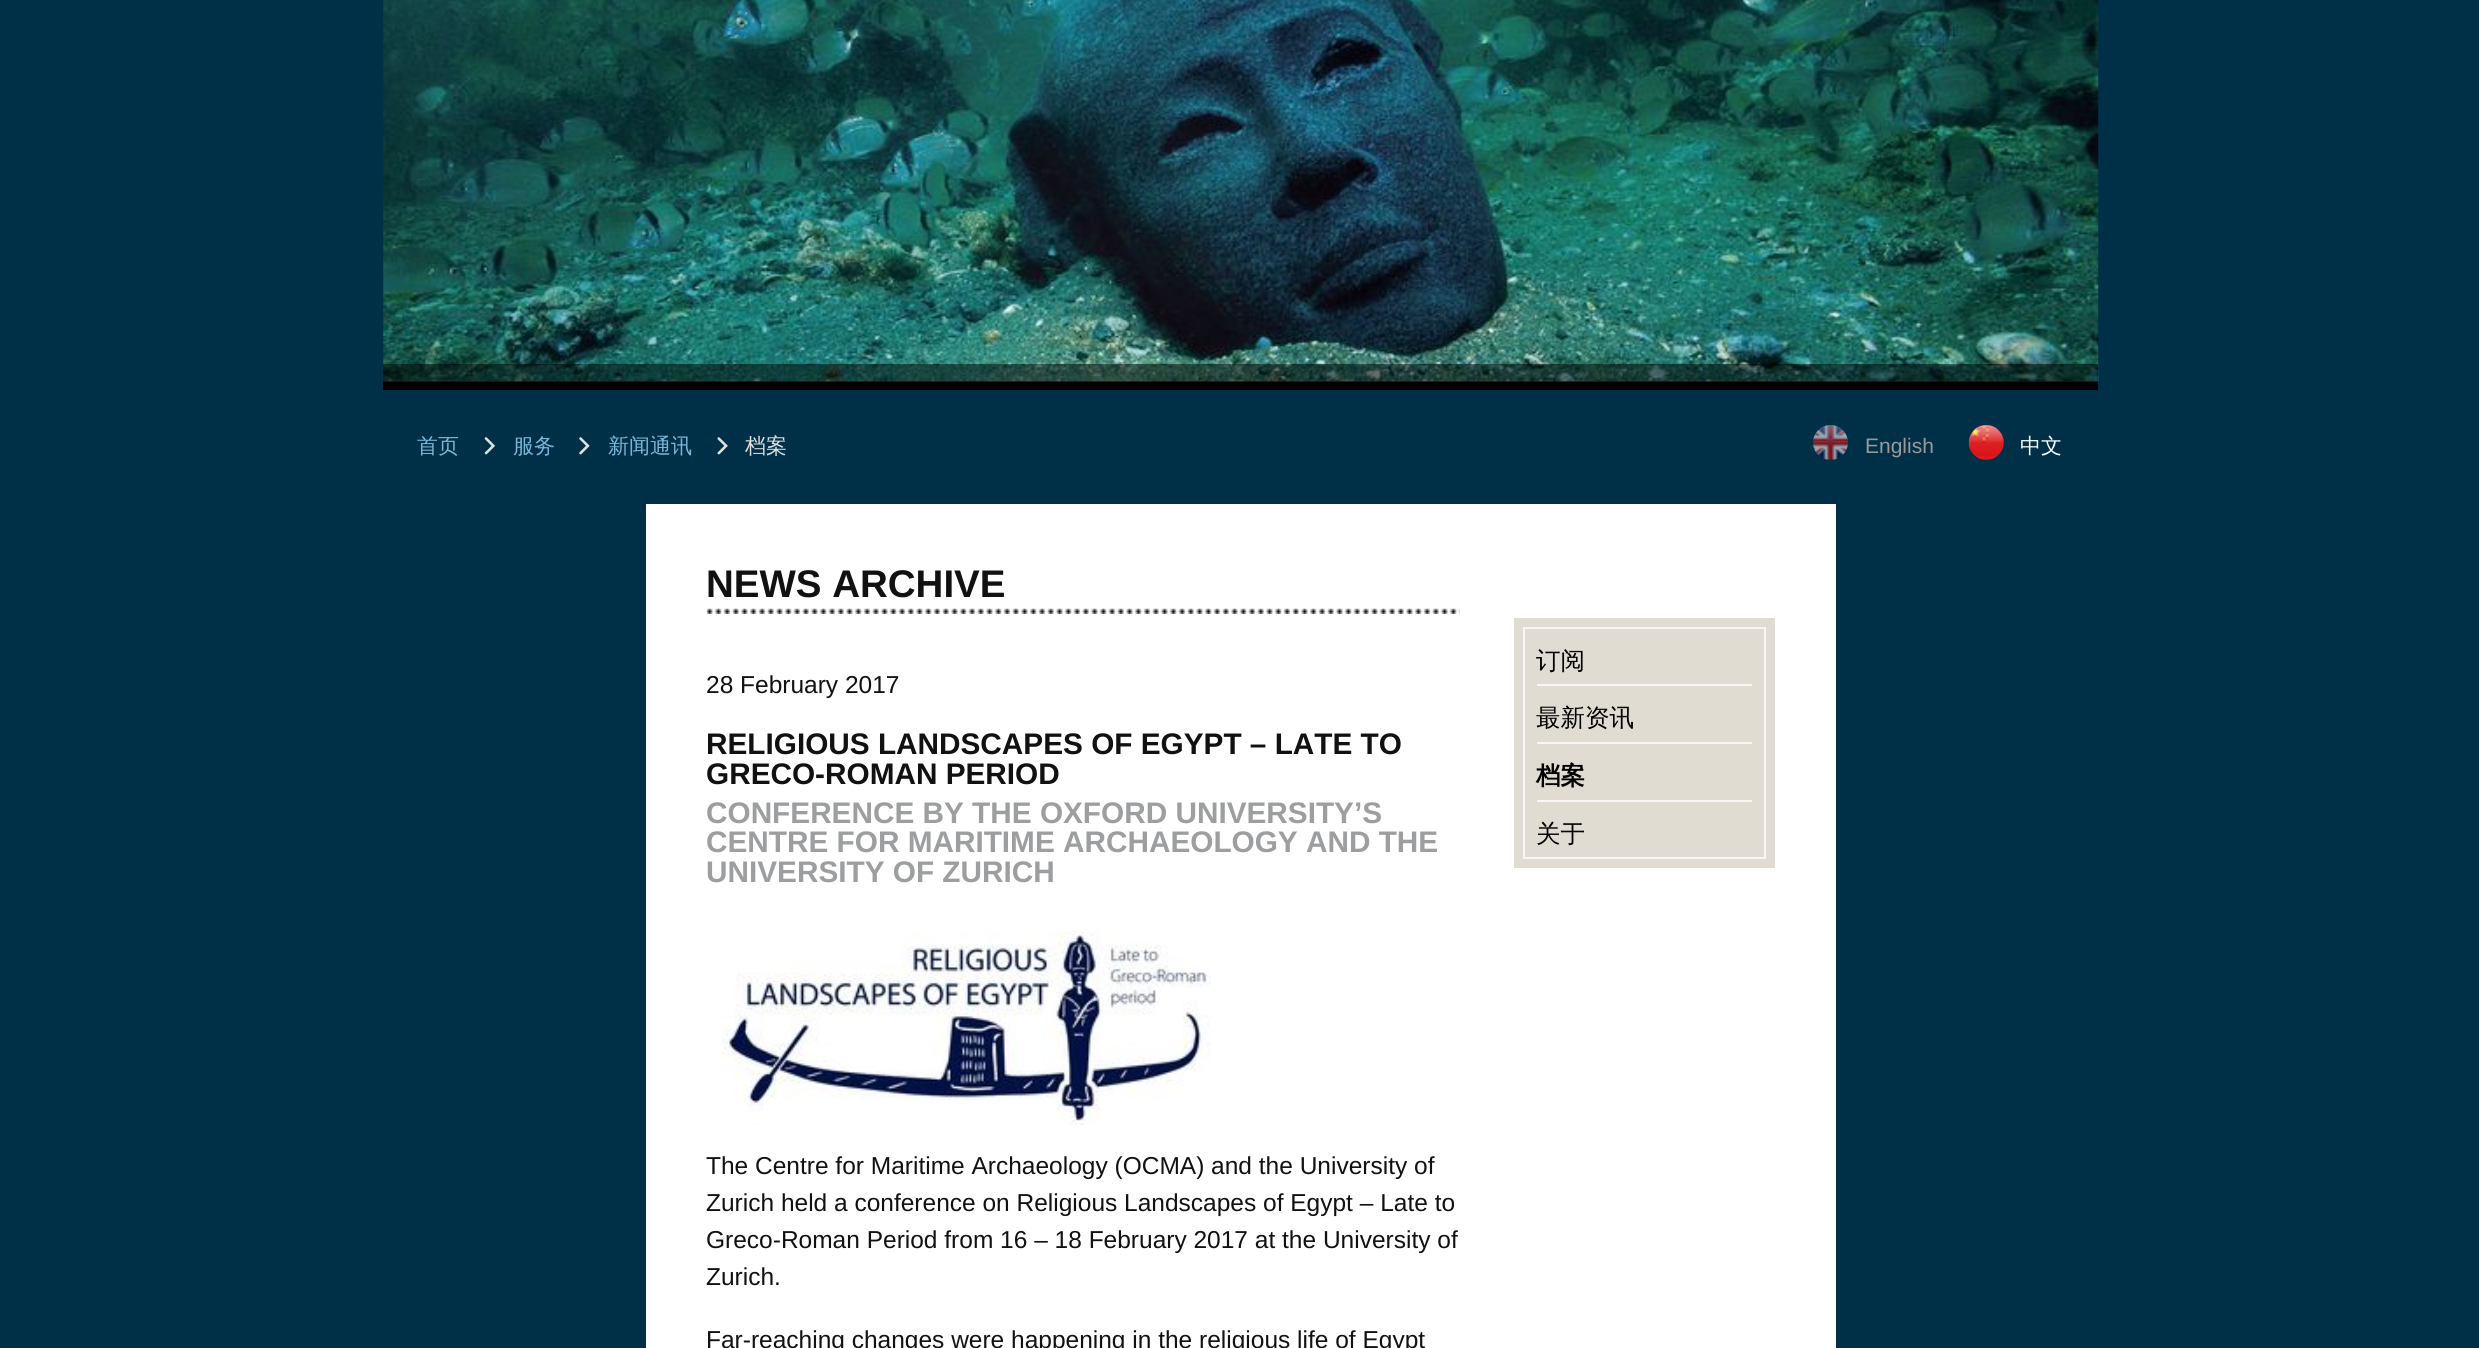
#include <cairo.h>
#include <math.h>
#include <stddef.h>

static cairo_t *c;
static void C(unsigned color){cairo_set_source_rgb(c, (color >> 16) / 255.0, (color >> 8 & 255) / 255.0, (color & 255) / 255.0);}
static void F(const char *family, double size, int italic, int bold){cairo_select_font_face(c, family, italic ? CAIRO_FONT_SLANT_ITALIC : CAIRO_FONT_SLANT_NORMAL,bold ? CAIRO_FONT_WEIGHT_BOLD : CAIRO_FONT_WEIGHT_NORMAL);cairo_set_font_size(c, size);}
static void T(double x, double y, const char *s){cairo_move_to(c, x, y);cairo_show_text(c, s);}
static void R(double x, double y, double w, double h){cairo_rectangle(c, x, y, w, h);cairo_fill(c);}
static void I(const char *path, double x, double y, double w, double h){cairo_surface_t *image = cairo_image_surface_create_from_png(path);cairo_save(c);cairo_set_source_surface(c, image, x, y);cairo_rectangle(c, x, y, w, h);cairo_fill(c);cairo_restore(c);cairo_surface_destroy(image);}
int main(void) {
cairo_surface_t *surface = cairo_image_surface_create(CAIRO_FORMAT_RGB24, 2479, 1348);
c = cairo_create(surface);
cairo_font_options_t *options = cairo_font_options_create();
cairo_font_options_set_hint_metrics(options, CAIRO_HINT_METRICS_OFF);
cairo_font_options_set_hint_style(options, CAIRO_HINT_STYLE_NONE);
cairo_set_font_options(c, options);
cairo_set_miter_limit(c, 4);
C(0x003048);
cairo_paint(c);
C(0x000000);
R(383,382,1715,8);
I("1.png",383,0,1716,382);
cairo_set_source_rgba(c,0,0,0,0.5);
R(383,364,1715,18);
F("WenQuanYi Zen Hei Medium",21,0,0);
C(0x78b7d8);
T(417,453,"首页");
I("2.png",484,437,12,18);
T(513,453,"服务");
I("3.png",579,437,11,18);
T(608,453,"新闻通讯");
I("4.png",717,437,11,18);
C(0xe0e0e0);
T(745,453,"档案");
I("5.png",1813,425,35,35);
F("Liberation Sans",21,0,0);
C(0x999999);
T(1865,453,"English");
I("6.png",1968,425,36,35);
F("WenQuanYi Zen Hei Medium",21,0,0);
C(0xffffff);
T(2020,453,"中文");
R(646,504,1190,844);
I("7.png",707,608,753,6);
F("Liberation Sans",38.5,0,1);
C(0x111111);
T(706,597,"NEWS ARCHIVE");
F("Liberation Sans",24.5,0,0);
T(706,693,"28 February 2017");
F("Liberation Sans",29.75,0,1);
T(706,754,"RELIGIOUS LANDSCAPES OF EGYPT – LATE TO");
T(706,784,"GRECO-ROMAN PERIOD");
C(0x9c9e9f);
T(706,823,"CONFERENCE BY THE OXFORD UNIVERSITY’S");
T(706,852,"CENTRE FOR MARITIME ARCHAEOLOGY AND THE");
T(706,882,"UNIVERSITY OF ZURICH");
I("8.png",720,930,491,195);
F("Liberation Sans",24.5,0,0);
C(0x111111);
T(706,1174,"The Centre for Maritime Archaeology (OCMA) and the University of");
T(706,1211,"Zurich held a conference on Religious Landscapes of Egypt – Late to");
T(706,1248,"Greco-Roman Period from 16 – 18 February 2017 at the University of");
T(706,1285,"Zurich.");
T(706,1348,"Far-reaching changes were happening in the religious life of Egypt");
C(0xe0dcd1);
R(1514,618,261,250);
cairo_rectangle(c,1524,628,241,230);
C(0xf7f6f4);
cairo_stroke(c);
R(1537,684,215,2);
F("WenQuanYi Zen Hei Medium",24.5,0,0);
C(0x000000);
T(1536,669,"订阅");
C(0xf7f6f4);
R(1537,742,215,2);
C(0x000000);
T(1536,726,"最新资讯");
C(0xf7f6f4);
R(1537,800,215,2);
F("WenQuanYi Zen Hei",24.5,0,1);
C(0x000000);
T(1536,784,"档案");
F("WenQuanYi Zen Hei Medium",24.5,0,0);
T(1536,842,"关于");
cairo_surface_write_to_png(surface, "o.png");
cairo_font_options_destroy(options);
cairo_destroy(c);
cairo_surface_destroy(surface);
return 0;
}
